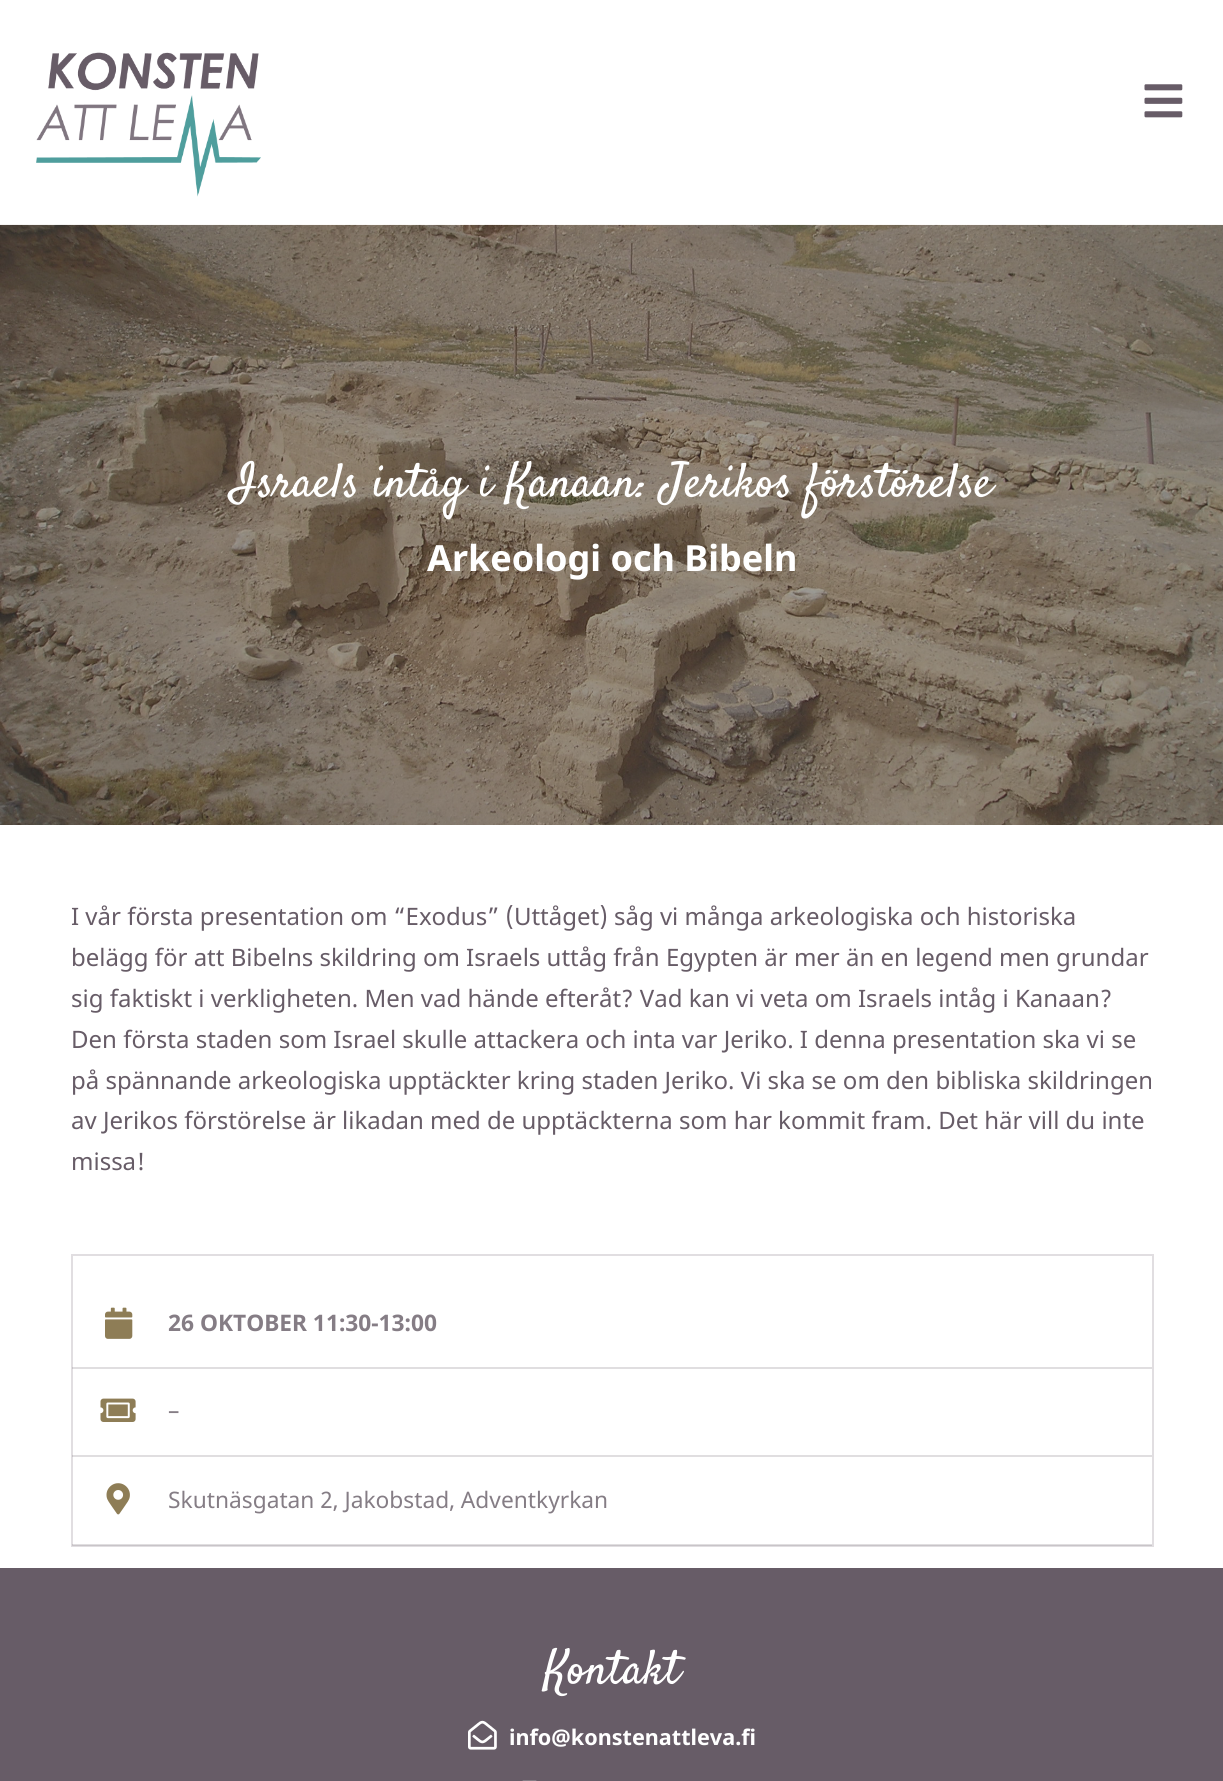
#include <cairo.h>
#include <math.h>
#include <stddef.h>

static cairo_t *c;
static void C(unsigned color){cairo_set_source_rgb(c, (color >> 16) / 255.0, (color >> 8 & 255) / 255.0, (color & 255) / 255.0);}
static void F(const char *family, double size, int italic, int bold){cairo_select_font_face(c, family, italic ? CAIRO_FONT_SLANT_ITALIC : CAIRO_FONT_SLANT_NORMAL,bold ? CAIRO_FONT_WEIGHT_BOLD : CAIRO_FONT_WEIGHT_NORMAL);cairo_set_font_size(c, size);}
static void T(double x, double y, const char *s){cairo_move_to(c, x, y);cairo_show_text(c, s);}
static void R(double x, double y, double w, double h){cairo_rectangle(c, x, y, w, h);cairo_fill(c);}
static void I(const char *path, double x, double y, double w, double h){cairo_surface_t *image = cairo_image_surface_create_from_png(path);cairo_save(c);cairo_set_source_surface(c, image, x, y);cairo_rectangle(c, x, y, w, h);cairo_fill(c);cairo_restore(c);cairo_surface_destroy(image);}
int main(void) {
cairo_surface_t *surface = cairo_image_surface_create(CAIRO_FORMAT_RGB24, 1223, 1781);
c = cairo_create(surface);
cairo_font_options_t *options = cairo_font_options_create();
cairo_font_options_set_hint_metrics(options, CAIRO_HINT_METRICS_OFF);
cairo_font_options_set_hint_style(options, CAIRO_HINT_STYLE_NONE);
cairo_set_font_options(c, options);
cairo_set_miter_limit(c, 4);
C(0xffffff);
cairo_paint(c);
I("1.png",36,52,225,145);
I("2.png",1144,84,39,34);
I("3.png",0,224,1223,601);
F("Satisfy",48,0,0);
C(0xffffff);
T(231,496,"Israels intåg i Kanaan: Jerikos förstörelse");
F("Noto Sans",36,0,1);
T(427,571,"Arkeologi och Bibeln");
F("Noto Sans",24,0,0);
C(0x675c67);
T(71,925,"I vår första presentation om “Exodus” (Uttåget) såg vi många arkeologiska och historiska");
T(71,966,"belägg för att Bibelns skildring om Israels uttåg från Egypten är mer än en legend men grundar");
T(71,1007,"sig faktiskt i verkligheten. Men vad hände efteråt? Vad kan vi veta om Israels intåg i Kanaan?");
T(71,1048,"Den första staden som Israel skulle attackera och inta var Jeriko. I denna presentation ska vi se");
T(71,1089,"på spännande arkeologiska upptäckter kring staden Jeriko. Vi ska se om den bibliska skildringen");
T(71,1129,"av Jerikos förstörelse är likadan med de upptäckterna som har kommit fram. Det här vill du inte");
T(71,1170,"missa!");
cairo_rectangle(c,72,1255,1081,291);
C(0xe1dee1);
cairo_stroke(c);
cairo_set_source_rgba(c,0.404,0.361,0.404,0.2);
R(72,1367,1080,2);
I("4.png",105,1307,28,32);
F("Noto Sans",22.75,0,1);
C(0x857d85);
T(168,1331,"26 OKTOBER 11:30-13:00");
cairo_set_source_rgba(c,0.404,0.361,0.404,0.2);
R(72,1455,1080,2);
I("5.png",100,1398,36,24);
F("Noto Sans",22.75,0,0);
C(0x857d85);
T(168,1419,"–");
cairo_set_source_rgba(c,0.404,0.361,0.404,0.2);
R(72,1544,1080,2);
I("6.png",106,1483,24,32);
C(0x857d85);
T(168,1508,"Skutnäsgatan 2, Jakobstad, Adventkyrkan");
C(0x675c67);
R(0,1568,1223,213);
F("Satisfy",48,0,0);
C(0xffffff);
T(544,1683,"Kontakt");
I("7.png",468,1720,29,30);
F("Noto Sans",21.6,0,1);
T(509,1745,"info@konstenattleva.fi");
I("8.png",522,1780,15,1);
cairo_surface_write_to_png(surface, "o.png");
cairo_font_options_destroy(options);
cairo_destroy(c);
cairo_surface_destroy(surface);
return 0;
}
